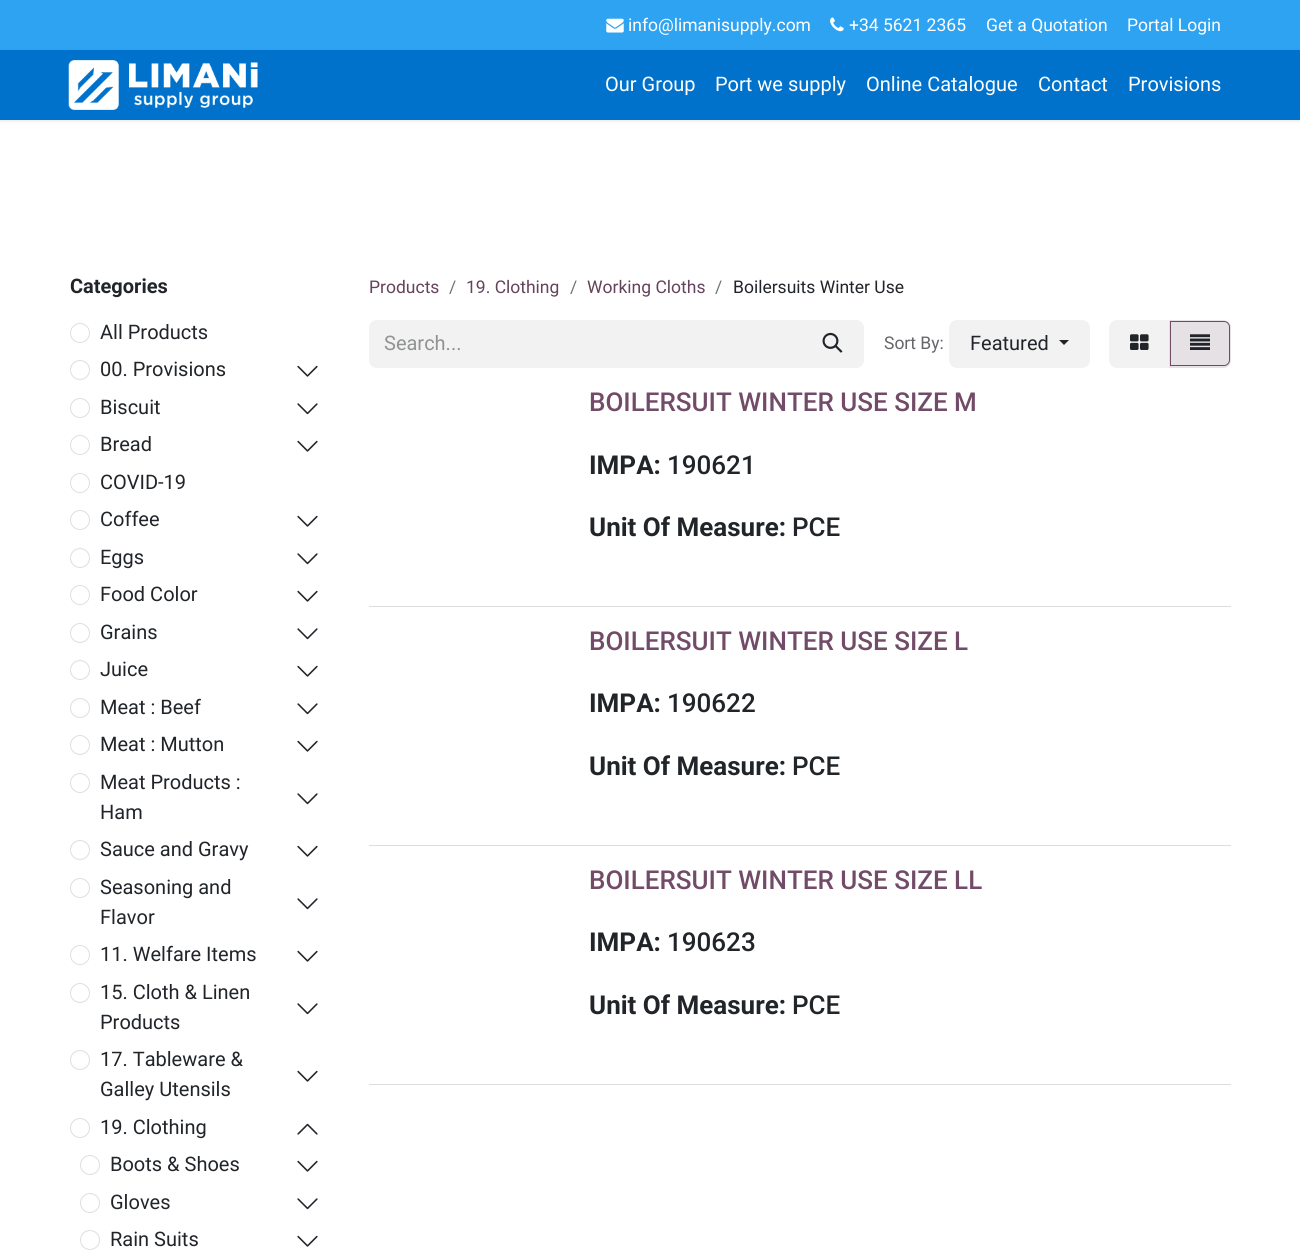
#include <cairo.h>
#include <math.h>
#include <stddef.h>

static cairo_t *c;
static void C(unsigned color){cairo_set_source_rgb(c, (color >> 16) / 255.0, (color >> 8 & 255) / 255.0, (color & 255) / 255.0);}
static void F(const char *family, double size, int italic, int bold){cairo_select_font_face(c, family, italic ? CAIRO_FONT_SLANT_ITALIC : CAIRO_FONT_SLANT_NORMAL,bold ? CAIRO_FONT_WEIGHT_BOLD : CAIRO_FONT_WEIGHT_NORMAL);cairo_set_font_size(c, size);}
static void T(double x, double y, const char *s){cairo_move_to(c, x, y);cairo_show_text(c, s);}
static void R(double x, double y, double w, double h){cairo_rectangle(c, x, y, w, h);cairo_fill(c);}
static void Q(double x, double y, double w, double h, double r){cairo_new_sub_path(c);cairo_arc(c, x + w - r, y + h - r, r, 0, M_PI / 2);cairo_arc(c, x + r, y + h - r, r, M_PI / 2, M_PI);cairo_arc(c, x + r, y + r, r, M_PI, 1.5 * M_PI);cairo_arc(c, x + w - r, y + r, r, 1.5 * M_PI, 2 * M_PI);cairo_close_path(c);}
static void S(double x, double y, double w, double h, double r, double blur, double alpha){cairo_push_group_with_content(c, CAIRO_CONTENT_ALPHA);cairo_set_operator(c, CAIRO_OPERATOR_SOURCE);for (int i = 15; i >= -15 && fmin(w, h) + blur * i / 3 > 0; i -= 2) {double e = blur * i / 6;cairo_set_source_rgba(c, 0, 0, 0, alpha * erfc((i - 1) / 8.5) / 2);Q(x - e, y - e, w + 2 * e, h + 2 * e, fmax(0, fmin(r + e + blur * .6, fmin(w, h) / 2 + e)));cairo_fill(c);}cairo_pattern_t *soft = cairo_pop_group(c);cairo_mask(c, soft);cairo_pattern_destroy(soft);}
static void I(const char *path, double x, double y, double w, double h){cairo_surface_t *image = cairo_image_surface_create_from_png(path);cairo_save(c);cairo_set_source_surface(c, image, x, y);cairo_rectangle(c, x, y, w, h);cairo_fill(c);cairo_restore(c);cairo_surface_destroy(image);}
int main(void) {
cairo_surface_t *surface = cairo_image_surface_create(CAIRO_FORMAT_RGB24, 1300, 1258);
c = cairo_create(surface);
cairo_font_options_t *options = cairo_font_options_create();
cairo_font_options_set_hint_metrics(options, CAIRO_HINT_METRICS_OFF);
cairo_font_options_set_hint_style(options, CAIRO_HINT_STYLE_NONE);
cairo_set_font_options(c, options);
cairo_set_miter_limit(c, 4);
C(0xffffff);
cairo_paint(c);
C(0x2ea3f2);
R(0,0,1300,50);
I("1.png",606,18,18,15);
F("Roboto",17.5,0,0);
C(0xffffff);
T(628,31,"info@limanisupply.com");
I("2.png",830,17,14,15);
T(849,31,"+34 5621 2365");
T(986,31,"Get a Quotation");
T(1127,31,"Portal Login");
C(0x000000);
S(0,51,1300,70,0,2,.1);
C(0x0072cb);
R(0,50,1300,70);
I("3.png",68,60,190,50);
F("Roboto",20,0,0);
C(0xffffff);
T(605,91,"Our Group");
T(715,91,"Port we supply");
T(866,91,"Online Catalogue");
T(1038,91,"Contact");
T(1128,91,"Provisions");
F("Roboto",20,0,1);
C(0x212529);
T(70,293,"Categories");
cairo_new_path(c);
cairo_arc(c,80,333,9.5,0,2 * M_PI);
C(0xdededf);
cairo_set_line_width(c,1);
cairo_stroke(c);
F("Roboto",20,0,0);
C(0x212529);
T(100,339,"All Products");
cairo_new_path(c);
cairo_arc(c,80,370,9.5,0,2 * M_PI);
C(0xdededf);
cairo_stroke(c);
C(0x212529);
T(100,376,"00. Provisions");
I("4.png",297,365,21,12);
cairo_arc(c,80,408,9.5,0,2 * M_PI);
C(0xdededf);
cairo_stroke(c);
C(0x212529);
T(100,414,"Biscuit");
I("5.png",297,403,21,12);
cairo_arc(c,80,445,9.5,0,2 * M_PI);
C(0xdededf);
cairo_stroke(c);
C(0x212529);
T(100,451,"Bread");
I("4.png",297,440,21,12);
cairo_arc(c,80,483,9.5,0,2 * M_PI);
C(0xdededf);
cairo_stroke(c);
C(0x212529);
T(100,489,"COVID-19");
cairo_new_path(c);
cairo_arc(c,80,520,9.5,0,2 * M_PI);
C(0xdededf);
cairo_stroke(c);
C(0x212529);
T(100,526,"Coffee");
I("4.png",297,515,21,12);
cairo_arc(c,80,558,9.5,0,2 * M_PI);
C(0xdededf);
cairo_stroke(c);
C(0x212529);
T(100,564,"Eggs");
I("5.png",297,553,21,12);
cairo_arc(c,80,595,9.5,0,2 * M_PI);
C(0xdededf);
cairo_stroke(c);
C(0x212529);
T(100,601,"Food Color");
I("4.png",297,590,21,12);
cairo_arc(c,80,633,9.5,0,2 * M_PI);
C(0xdededf);
cairo_stroke(c);
C(0x212529);
T(100,639,"Grains");
I("5.png",297,628,21,12);
cairo_arc(c,80,670,9.5,0,2 * M_PI);
C(0xdededf);
cairo_stroke(c);
C(0x212529);
T(100,676,"Juice");
I("4.png",297,665,21,12);
cairo_arc(c,80,708,9.5,0,2 * M_PI);
C(0xdededf);
cairo_stroke(c);
C(0x212529);
T(100,714,"Meat : Beef");
I("5.png",297,703,21,12);
cairo_arc(c,80,745,9.5,0,2 * M_PI);
C(0xdededf);
cairo_stroke(c);
C(0x212529);
T(100,751,"Meat : Mutton");
I("4.png",297,740,21,12);
cairo_arc(c,80,783,9.5,0,2 * M_PI);
C(0xdededf);
cairo_stroke(c);
C(0x212529);
T(100,789,"Meat Products :");
T(100,819,"Ham");
I("5.png",297,793,21,12);
cairo_arc(c,80,850,9.5,0,2 * M_PI);
C(0xdededf);
cairo_stroke(c);
C(0x212529);
T(100,856,"Sauce and Gravy");
I("4.png",297,845,21,12);
cairo_arc(c,80,888,9.5,0,2 * M_PI);
C(0xdededf);
cairo_stroke(c);
C(0x212529);
T(100,894,"Seasoning and");
T(100,924,"Flavor");
I("5.png",297,898,21,12);
cairo_arc(c,80,955,9.5,0,2 * M_PI);
C(0xdededf);
cairo_stroke(c);
C(0x212529);
T(100,961,"11. Welfare Items");
I("4.png",297,950,21,12);
cairo_arc(c,80,993,9.5,0,2 * M_PI);
C(0xdededf);
cairo_stroke(c);
C(0x212529);
T(100,999,"15. Cloth & Linen");
T(100,1029,"Products");
I("5.png",297,1003,21,12);
cairo_arc(c,80,1060,9.5,0,2 * M_PI);
C(0xdededf);
cairo_stroke(c);
C(0x212529);
T(100,1066,"17. Tableware &");
T(100,1096,"Galley Utensils");
I("4.png",297,1070,21,12);
cairo_arc(c,80,1128,9.5,0,2 * M_PI);
C(0xdededf);
cairo_stroke(c);
C(0x212529);
T(100,1134,"19. Clothing");
I("6.png",297,1123,21,12);
cairo_arc(c,90,1165,9.5,0,2 * M_PI);
C(0xdededf);
cairo_stroke(c);
C(0x212529);
T(110,1171,"Boots & Shoes");
I("4.png",297,1160,21,12);
cairo_arc(c,90,1203,9.5,0,2 * M_PI);
C(0xdededf);
cairo_stroke(c);
C(0x212529);
T(110,1209,"Gloves");
I("5.png",297,1198,21,12);
cairo_arc(c,90,1240,9.5,0,2 * M_PI);
C(0xdededf);
cairo_stroke(c);
C(0x212529);
T(110,1246,"Rain Suits");
I("4.png",297,1235,21,12);
F("Roboto",17.5,0,0);
C(0x65435c);
T(369,293,"Products");
C(0x6c757d);
T(449,293,"/");
C(0x65435c);
T(466,293,"19. Clothing");
C(0x6c757d);
T(570,293,"/");
C(0x65435c);
T(587,293,"Working Cloths");
C(0x6c757d);
T(715,293,"/");
C(0x212529);
T(733,293,"Boilersuits Winter Use");
C(0xf3f2f2);
cairo_new_path(c);
cairo_move_to(c,377,320);
cairo_line_to(c,803,320);
cairo_line_to(c,803,368);
cairo_line_to(c,377,368);
cairo_curve_to(c,372.5,368,369,364.5,369,360);
cairo_line_to(c,369,328);
cairo_curve_to(c,369,323.5,372.5,320,377,320);
cairo_close_path(c);
cairo_fill(c);
F("Roboto",20,0,0);
C(0x909294);
T(384,350,"Search...");
C(0xf3f2f2);
cairo_new_path(c);
cairo_move_to(c,801.5,320.5);
cairo_line_to(c,856,320.5);
cairo_curve_to(c,860,320.5,863.5,324,863.5,328);
cairo_line_to(c,863.5,360);
cairo_curve_to(c,863.5,364,860,367.5,856,367.5);
cairo_line_to(c,801.5,367.5);
cairo_close_path(c);
cairo_fill_preserve(c);
cairo_stroke(c);
I("7.png",822,332,21,21);
F("Roboto",17.5,0,0);
C(0x646669);
T(884,349,"Sort By:");
C(0xf3f2f2);
Q(949.5,320.5,140,47,7.5);
cairo_fill_preserve(c);
cairo_stroke(c);
F("Roboto",20,0,0);
C(0x212529);
T(970,350,"Featured");
cairo_new_path(c);
cairo_move_to(c,1059,340);
cairo_line_to(c,1069,340);
cairo_line_to(c,1064,345);
cairo_close_path(c);
cairo_fill(c);
C(0xf3f2f2);
cairo_new_path(c);
cairo_move_to(c,1117,320.5);
cairo_line_to(c,1169.5,320.5);
cairo_line_to(c,1169.5,367.5);
cairo_line_to(c,1117,367.5);
cairo_curve_to(c,1113,367.5,1109.5,364,1109.5,360);
cairo_line_to(c,1109.5,328);
cairo_curve_to(c,1109.5,324,1113,320.5,1117,320.5);
cairo_close_path(c);
cairo_fill_preserve(c);
cairo_stroke(c);
I("8.png",1130,334,19,16);
C(0xe6e1e4);
cairo_new_path(c);
cairo_move_to(c,1169,320);
cairo_line_to(c,1223,320);
cairo_curve_to(c,1227.5,320,1231,323.5,1231,328);
cairo_line_to(c,1231,360);
cairo_curve_to(c,1231,364.5,1227.5,368,1223,368);
cairo_line_to(c,1169,368);
cairo_close_path(c);
cairo_fill(c);
cairo_new_path(c);
cairo_move_to(c,1170.5,321.5);
cairo_line_to(c,1224,321.5);
cairo_curve_to(c,1227,321.5,1229.5,324,1229.5,327);
cairo_line_to(c,1229.5,360);
cairo_curve_to(c,1229.5,363,1227,365.5,1224,365.5);
cairo_line_to(c,1170.5,365.5);
cairo_close_path(c);
C(0x714b67);
cairo_stroke(c);
I("9.png",1190,334,20,16);
C(0xdededf);
R(369,606,862,1);
F("Roboto Medium",26,0,0);
C(0x714b67);
T(589,411,"BOILERSUIT WINTER USE SIZE M");
F("Roboto",26,0,1);
C(0x212529);
T(589,474,"IMPA:");
F("Roboto Medium",26,0,0);
T(667,474,"190621");
F("Roboto",26,0,1);
T(589,536,"Unit Of Measure:");
F("Roboto Medium",26,0,0);
T(792,536,"PCE");
C(0xdededf);
R(369,845,862,1);
C(0x714b67);
T(589,650,"BOILERSUIT WINTER USE SIZE L");
F("Roboto",26,0,1);
C(0x212529);
T(589,712,"IMPA:");
F("Roboto Medium",26,0,0);
T(667,712,"190622");
F("Roboto",26,0,1);
T(589,775,"Unit Of Measure:");
F("Roboto Medium",26,0,0);
T(792,775,"PCE");
C(0xdededf);
R(369,1084,862,1);
C(0x714b67);
T(589,889,"BOILERSUIT WINTER USE SIZE LL");
F("Roboto",26,0,1);
C(0x212529);
T(589,951,"IMPA:");
F("Roboto Medium",26,0,0);
T(667,951,"190623");
F("Roboto",26,0,1);
T(589,1014,"Unit Of Measure:");
F("Roboto Medium",26,0,0);
T(792,1014,"PCE");
cairo_surface_write_to_png(surface, "o.png");
cairo_font_options_destroy(options);
cairo_destroy(c);
cairo_surface_destroy(surface);
return 0;
}
